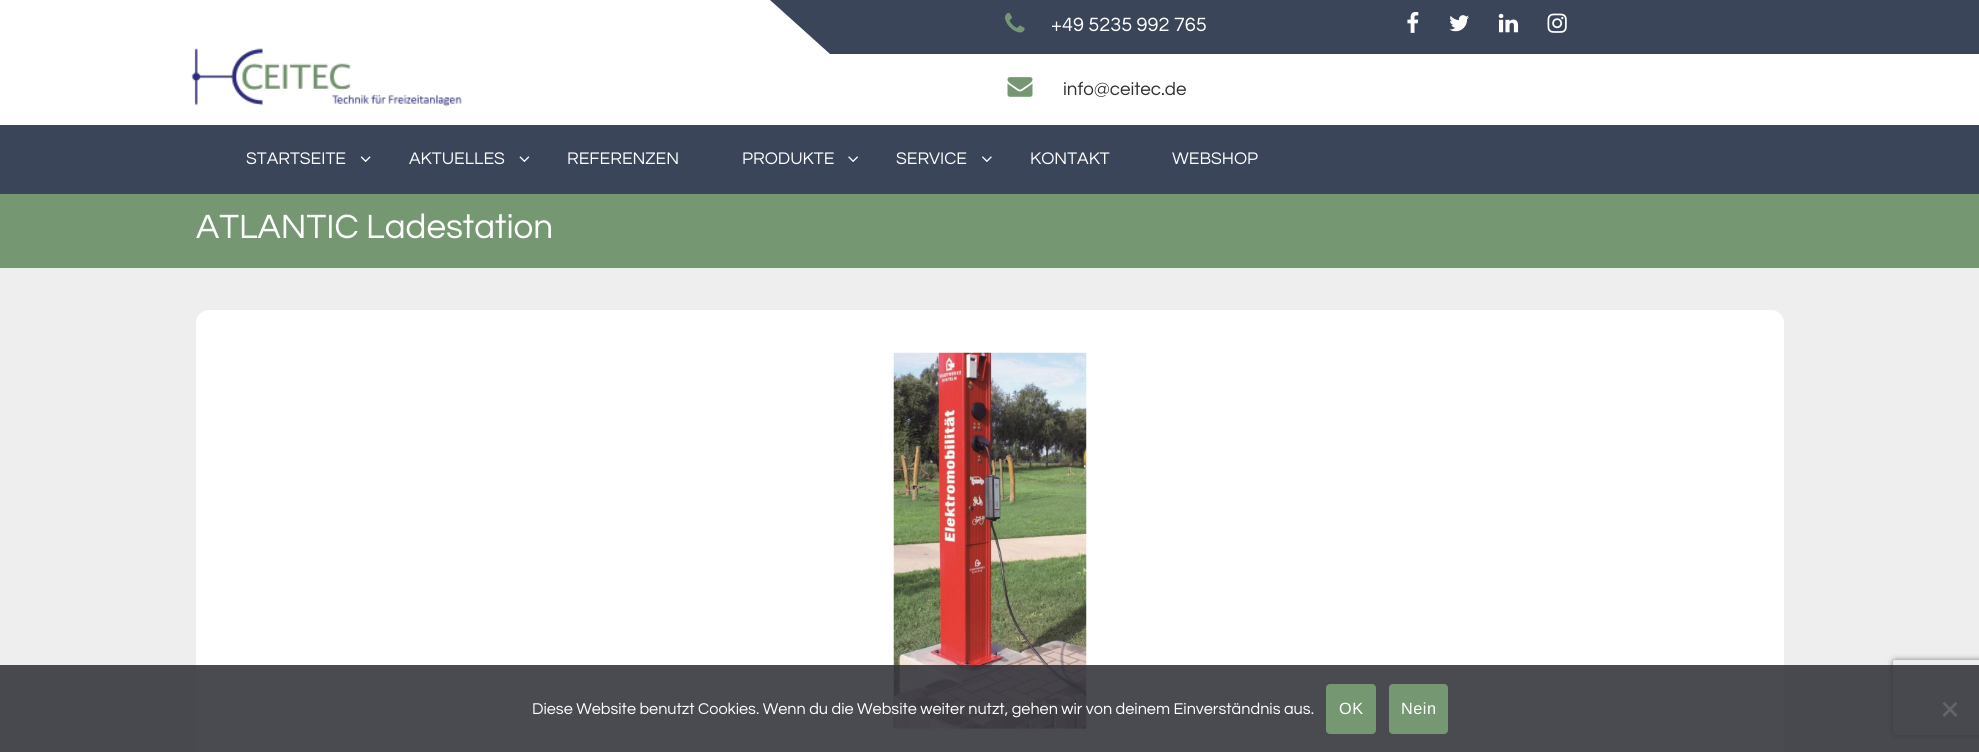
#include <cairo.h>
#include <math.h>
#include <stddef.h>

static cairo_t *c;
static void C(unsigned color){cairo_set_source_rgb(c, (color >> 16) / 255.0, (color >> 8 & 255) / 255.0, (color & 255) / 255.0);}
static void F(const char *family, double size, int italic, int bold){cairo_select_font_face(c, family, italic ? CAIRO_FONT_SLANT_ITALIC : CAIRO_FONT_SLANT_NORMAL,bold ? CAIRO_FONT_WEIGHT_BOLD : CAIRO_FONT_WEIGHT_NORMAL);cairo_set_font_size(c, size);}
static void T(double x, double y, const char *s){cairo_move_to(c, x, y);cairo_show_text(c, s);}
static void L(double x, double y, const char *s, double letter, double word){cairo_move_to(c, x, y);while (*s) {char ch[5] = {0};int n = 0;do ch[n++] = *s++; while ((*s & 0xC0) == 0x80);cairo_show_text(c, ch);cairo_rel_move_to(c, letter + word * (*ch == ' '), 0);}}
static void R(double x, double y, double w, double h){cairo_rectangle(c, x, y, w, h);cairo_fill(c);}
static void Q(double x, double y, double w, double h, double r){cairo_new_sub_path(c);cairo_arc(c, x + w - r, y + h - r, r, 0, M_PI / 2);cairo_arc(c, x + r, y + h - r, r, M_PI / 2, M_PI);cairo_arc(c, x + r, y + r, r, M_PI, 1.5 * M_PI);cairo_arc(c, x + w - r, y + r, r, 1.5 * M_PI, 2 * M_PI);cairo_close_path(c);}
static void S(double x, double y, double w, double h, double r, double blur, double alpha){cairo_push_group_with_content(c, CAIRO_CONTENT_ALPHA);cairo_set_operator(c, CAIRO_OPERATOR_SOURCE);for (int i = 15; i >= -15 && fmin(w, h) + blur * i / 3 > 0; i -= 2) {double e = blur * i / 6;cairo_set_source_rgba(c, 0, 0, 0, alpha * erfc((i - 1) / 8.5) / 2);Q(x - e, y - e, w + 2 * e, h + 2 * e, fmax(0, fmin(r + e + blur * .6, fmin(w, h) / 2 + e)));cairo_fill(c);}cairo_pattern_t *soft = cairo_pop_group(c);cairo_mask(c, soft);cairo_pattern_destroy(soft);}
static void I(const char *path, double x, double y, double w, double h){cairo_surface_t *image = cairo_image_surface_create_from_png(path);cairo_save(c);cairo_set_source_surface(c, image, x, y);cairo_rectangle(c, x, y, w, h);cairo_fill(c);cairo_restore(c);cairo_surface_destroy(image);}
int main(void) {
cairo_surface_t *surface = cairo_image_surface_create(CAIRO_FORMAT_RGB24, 1979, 752);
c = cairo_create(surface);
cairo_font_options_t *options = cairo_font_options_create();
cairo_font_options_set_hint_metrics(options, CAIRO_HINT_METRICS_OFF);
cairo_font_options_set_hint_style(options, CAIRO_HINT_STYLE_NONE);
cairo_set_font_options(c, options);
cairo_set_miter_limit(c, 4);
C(0xffffff);
cairo_paint(c);
I("1.png",191,48,271,59);
C(0x3a4559);
cairo_new_path(c);
cairo_move_to(c,770,0);
cairo_line_to(c,830,54);
cairo_line_to(c,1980,54);
cairo_line_to(c,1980,0);
cairo_close_path(c);
cairo_fill(c);
I("2.png",1005,12,20,21);
F("Questrial",20,0,0);
C(0xffffff);
T(1051,31,"+49 5235 992 765");
I("3.png",1407,12,12,21);
I("4.png",1449,15,20,17);
I("5.png",1498,13,21,20);
I("6.png",1547,13,20,20);
I("7.png",1007,77,26,20);
F("Questrial",18.75,0,0);
C(0x303030);
T(1063,95,"info@ceitec.de");
C(0x3a4559);
R(0,125,1979,69);
F("Questrial",17.5,0,0);
C(0xffffff);
T(246,164,"STARTSEITE");
I("8.png",360,156,11,6);
T(409,164,"AKTUELLES");
I("9.png",519,156,11,6);
T(567,164,"REFERENZEN");
T(742,164,"PRODUKTE");
I("10.png",848,156,10,6);
T(896,164,"SERVICE");
I("11.png",982,156,10,6);
T(1030,164,"KONTAKT");
T(1172,164,"WEBSHOP");
C(0x759873);
R(0,194,1979,74);
F("Questrial",35,0,0);
C(0xffffff);
T(196,238,"ATLANTIC Ladestation");
C(0xeeeeee);
R(0,268,1979,484);
C(0xffffff);
Q(196,310,1588,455,13);
cairo_fill(c);
I("12.png",893,352,194,377);
cairo_save(c);
cairo_set_fill_rule(c,CAIRO_FILL_RULE_EVEN_ODD);
cairo_new_path(c);
cairo_move_to(c,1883,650);
cairo_line_to(c,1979,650);
cairo_line_to(c,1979,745);
cairo_line_to(c,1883,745);
cairo_close_path(c);
cairo_move_to(c,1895.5,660);
cairo_line_to(c,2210.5,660);
cairo_curve_to(c,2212,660,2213,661,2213,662.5);
cairo_line_to(c,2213,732.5);
cairo_curve_to(c,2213,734,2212,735,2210.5,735);
cairo_line_to(c,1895.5,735);
cairo_curve_to(c,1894,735,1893,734,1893,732.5);
cairo_line_to(c,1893,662.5);
cairo_curve_to(c,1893,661,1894,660,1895.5,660);
cairo_close_path(c);
cairo_clip(c);
C(0x808080);
S(1893,660,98,75,2.5,3,1);
cairo_restore(c);
cairo_set_source_rgba(c,0.196,0.196,0.227,0.88);
R(0,665,1979,87);
F("Questrial",16.25,0,0);
C(0xffffff);
T(532,714,"Diese Website benutzt Cookies. Wenn du die Website weiter nutzt, gehen wir von deinem Einverständnis aus.");
C(0x759873);
Q(1326,684,50,50,4);
cairo_fill(c);
F("Liberation Sans",16.25,0,0);
C(0xffffff);
L(1339,714,"OK",.5,0);
C(0x759873);
Q(1389,684,59,50,4);
cairo_fill(c);
C(0xffffff);
L(1401,714,"Nein",.5,0);
C(0x646468);
cairo_new_path(c);
cairo_move_to(c,1955.5,702);
cairo_line_to(c,1957.5,703.5);
cairo_line_to(c,1944.5,717);
cairo_line_to(c,1942.5,715);
cairo_close_path(c);
cairo_fill(c);
cairo_new_path(c);
cairo_move_to(c,1942.5,703.5);
cairo_line_to(c,1944.5,702);
cairo_line_to(c,1957.5,715);
cairo_line_to(c,1955.5,717);
cairo_close_path(c);
cairo_fill(c);
cairo_surface_write_to_png(surface, "o.png");
cairo_font_options_destroy(options);
cairo_destroy(c);
cairo_surface_destroy(surface);
return 0;
}
